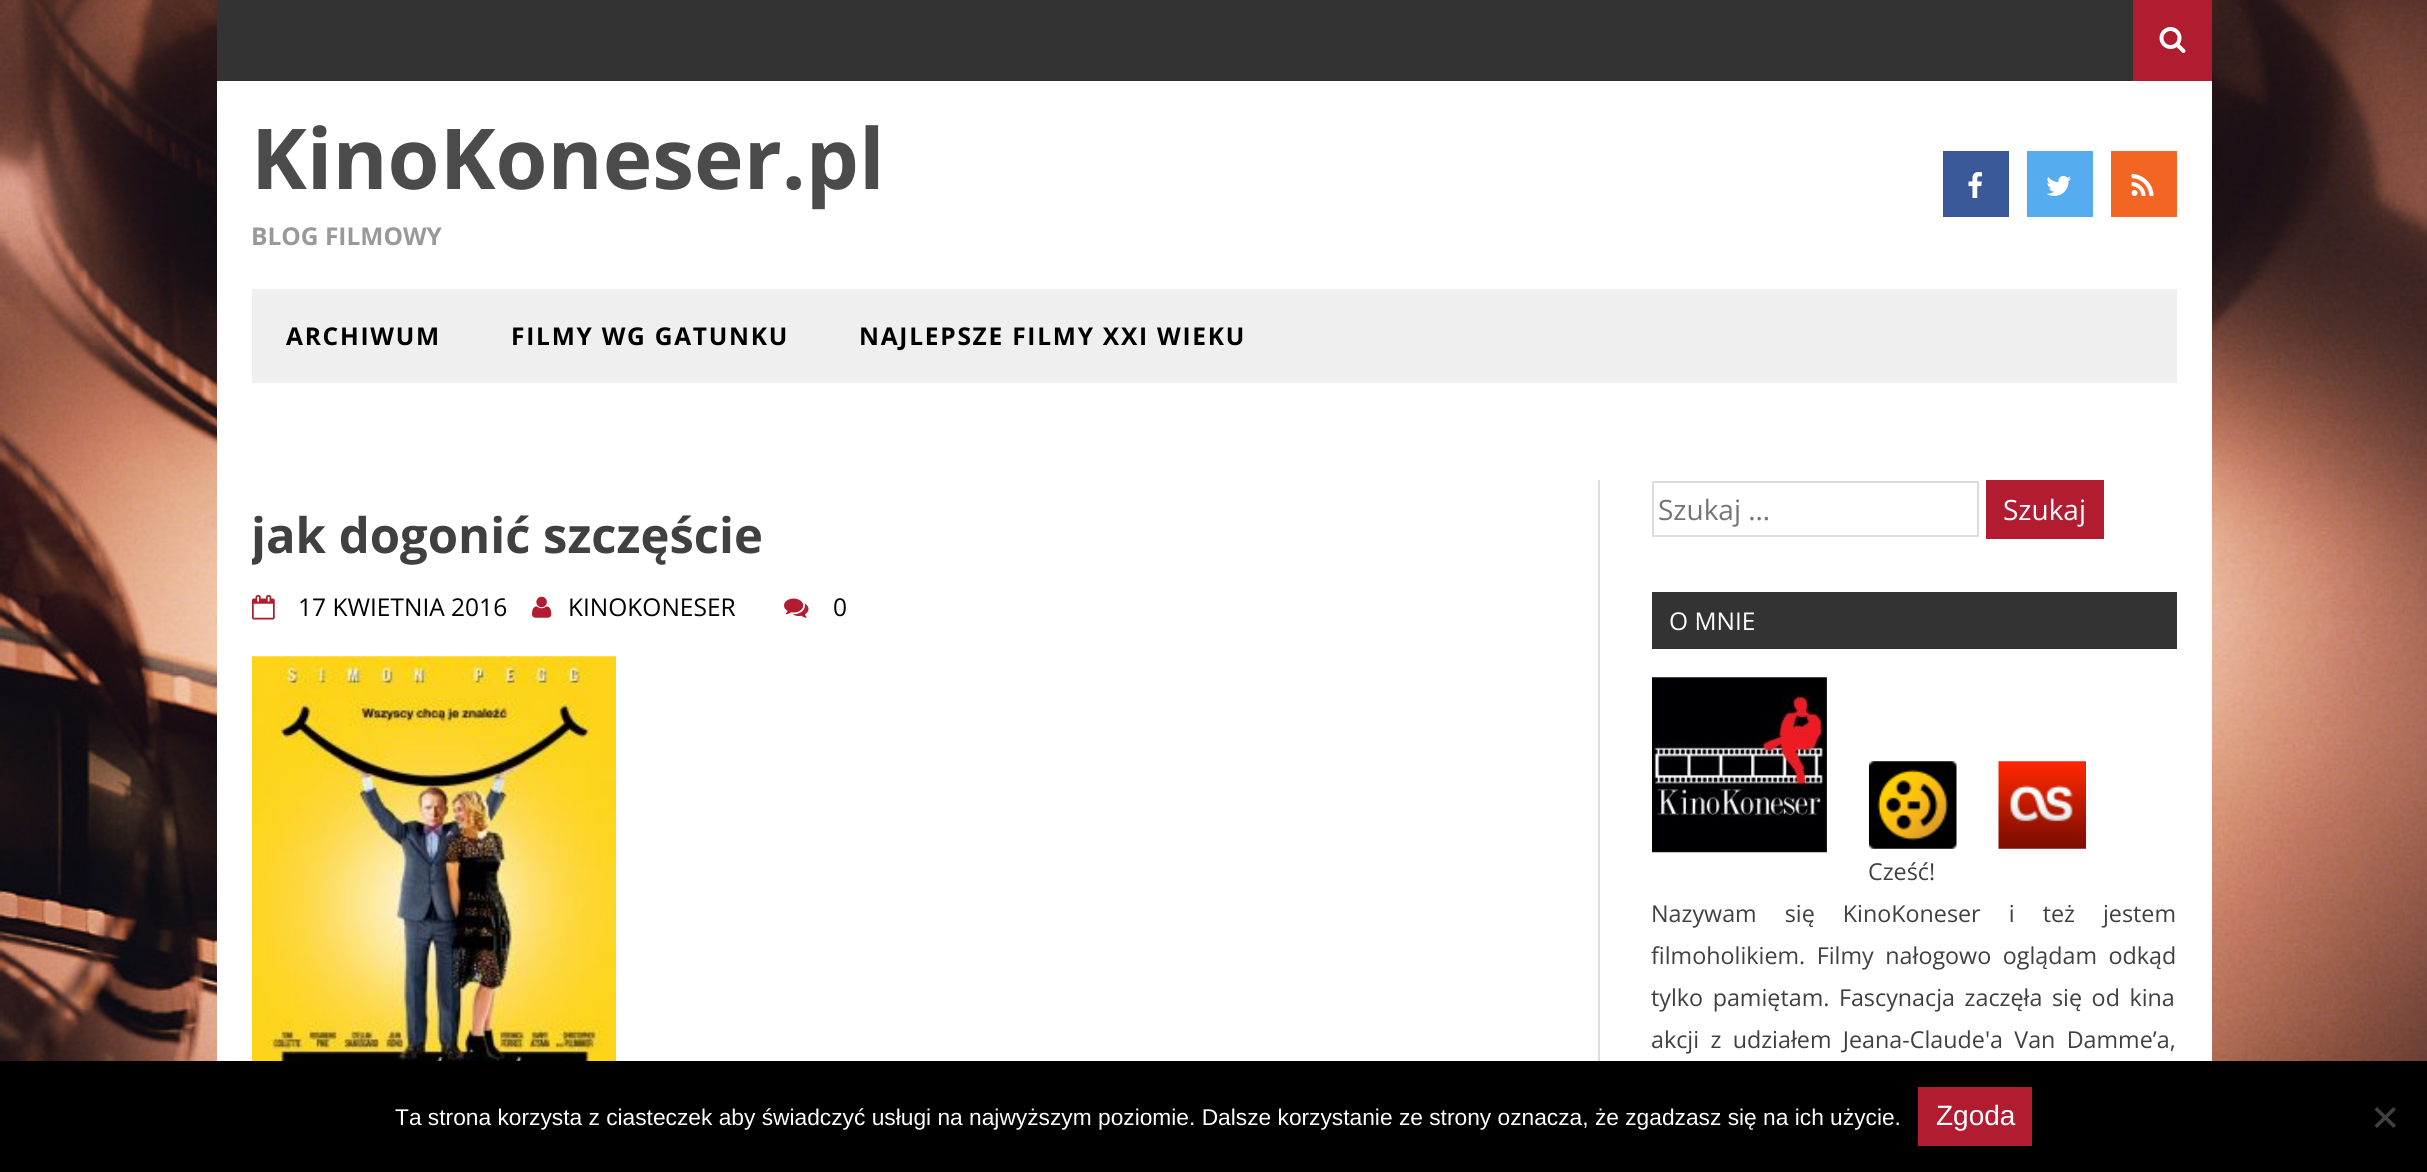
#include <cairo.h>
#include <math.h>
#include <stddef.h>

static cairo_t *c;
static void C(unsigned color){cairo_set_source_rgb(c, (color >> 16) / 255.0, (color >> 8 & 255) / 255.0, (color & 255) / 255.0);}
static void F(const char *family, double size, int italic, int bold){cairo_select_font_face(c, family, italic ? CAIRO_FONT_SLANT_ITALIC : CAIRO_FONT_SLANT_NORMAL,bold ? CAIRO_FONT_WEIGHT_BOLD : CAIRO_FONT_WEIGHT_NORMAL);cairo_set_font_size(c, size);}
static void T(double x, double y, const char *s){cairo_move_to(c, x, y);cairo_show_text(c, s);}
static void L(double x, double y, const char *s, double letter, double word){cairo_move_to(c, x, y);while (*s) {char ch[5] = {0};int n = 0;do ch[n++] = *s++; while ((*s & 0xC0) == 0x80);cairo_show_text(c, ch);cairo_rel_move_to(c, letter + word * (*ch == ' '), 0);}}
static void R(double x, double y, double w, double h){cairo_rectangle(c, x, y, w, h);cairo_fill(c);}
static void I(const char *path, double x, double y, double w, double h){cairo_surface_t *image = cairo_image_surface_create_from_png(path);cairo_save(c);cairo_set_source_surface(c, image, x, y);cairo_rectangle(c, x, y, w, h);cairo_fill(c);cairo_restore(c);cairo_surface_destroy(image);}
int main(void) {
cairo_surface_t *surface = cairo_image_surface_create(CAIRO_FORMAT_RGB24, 2427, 1172);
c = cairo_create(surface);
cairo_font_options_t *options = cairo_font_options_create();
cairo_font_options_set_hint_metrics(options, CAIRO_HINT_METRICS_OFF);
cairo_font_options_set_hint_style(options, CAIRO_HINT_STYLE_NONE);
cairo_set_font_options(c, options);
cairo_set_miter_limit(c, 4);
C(0xffffff);
cairo_paint(c);
I("1.png",0,0,2427,1061);
C(0xffffff);
R(217,81,1995,980);
C(0x333333);
R(217,0,1916,81);
C(0xb21c30);
R(2133,0,79,81);
I("2.png",2159,27,27,26);
F("Open Sans",84,0,1);
C(0x4b4b4b);
T(251,189,"KinoKoneser.pl");
F("Open Sans",24.5,0,1);
C(0x999999);
T(251,245,"BLOG FILMOWY");
C(0x3b5998);
R(1943,151,66,66);
I("3.png",1968,172,14,26);
C(0x55acee);
R(2027,151,66,66);
I("4.png",2046,176,25,20);
C(0xf26522);
R(2111,151,66,66);
I("5.png",2131,174,23,22);
C(0xefefef);
R(252,289,1925,94);
C(0x000000);
L(286,345,"ARCHIWUM",1.75,0);
L(511,345,"FILMY WG GATUNKU",1.75,0);
L(859,345,"NAJLEPSZE FILMY XXI WIEKU",1.75,0);
C(0xdddddd);
R(1598,480,2,581);
cairo_save(c);
cairo_rectangle(c,252,480,1925,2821);
cairo_clip(c);
F("Open Sans",49,0,1);
C(0x404040);
T(251,553,"jak dogonić szczęście");
cairo_restore(c);
I("6.png",252,595,23,25);
F("Open Sans",24.5,0,0);
C(0x000000);
T(298,616,"17 KWIETNIA 2016");
I("7.png",532,596,20,22);
T(568,616,"KINOKONESER");
I("8.png",784,598,25,20);
T(833,616,"0");
I("9.png",252,656,364,405);
cairo_rectangle(c,1653,482,325,54);
C(0xdddddd);
cairo_stroke(c);
F("Open Sans",28,0,0);
C(0x757575);
T(1658,520,"Szukaj …");
C(0xb21c30);
R(1986,480,118,59);
C(0xffffff);
T(2003,520,"Szukaj");
C(0x333333);
R(1652,592,525,57);
F("Open Sans",24.5,0,0);
C(0xffffff);
T(1669,630,"O MNIE");
I("10.png",1652,677,175,176);
I("11.png",1869,761,88,88);
I("12.png",1998,761,88,88);
F("Open Sans",23.3,0,0);
C(0x404040);
T(1868,880,"Cześć!");
L(1651,922,"Nazywam się KinoKoneser i też jestem",0,22);
L(1651,964,"filmoholikiem. Filmy nałogowo oglądam odkąd",0,5.5);
L(1651,1006,"tylko pamiętam. Fascynacja zaczęła się od kina",0,3.5);
L(1651,1048,"akcji z udziałem Jeana-Claude'a Van Damme’a,",0,5.25);
C(0x000000);
R(0,1061,2427,111);
F("Liberation Sans",22.75,0,0);
C(0xffffff);
T(395,1125,"Ta strona korzysta z ciasteczek aby świadczyć usługi na najwyższym poziomie. Dalsze korzystanie ze strony oznacza, że zgadzasz się na ich użycie.");
C(0xb21c30);
R(1918,1087,114,59);
F("Liberation Sans",28,0,0);
C(0xffffff);
T(1936,1125,"Zgoda");
C(0x404040);
cairo_new_path(c);
cairo_move_to(c,2393.5,1107);
cairo_line_to(c,2396,1109.5);
cairo_line_to(c,2377,1128);
cairo_line_to(c,2374.5,1125.5);
cairo_close_path(c);
cairo_fill(c);
cairo_new_path(c);
cairo_move_to(c,2374.5,1109.5);
cairo_line_to(c,2377,1107);
cairo_line_to(c,2396,1125.5);
cairo_line_to(c,2393.5,1128);
cairo_close_path(c);
cairo_fill(c);
cairo_surface_write_to_png(surface, "o.png");
cairo_font_options_destroy(options);
cairo_destroy(c);
cairo_surface_destroy(surface);
return 0;
}
